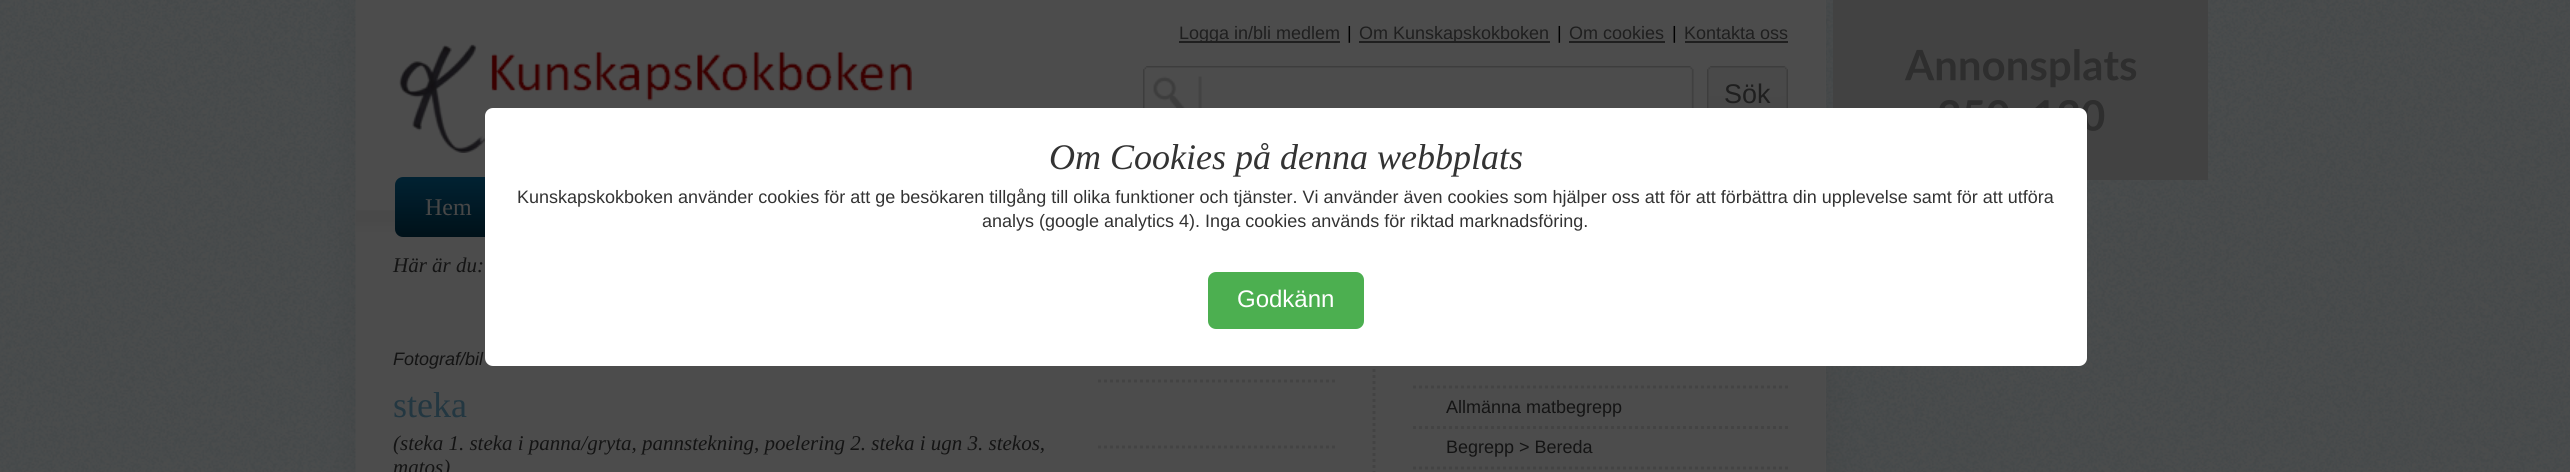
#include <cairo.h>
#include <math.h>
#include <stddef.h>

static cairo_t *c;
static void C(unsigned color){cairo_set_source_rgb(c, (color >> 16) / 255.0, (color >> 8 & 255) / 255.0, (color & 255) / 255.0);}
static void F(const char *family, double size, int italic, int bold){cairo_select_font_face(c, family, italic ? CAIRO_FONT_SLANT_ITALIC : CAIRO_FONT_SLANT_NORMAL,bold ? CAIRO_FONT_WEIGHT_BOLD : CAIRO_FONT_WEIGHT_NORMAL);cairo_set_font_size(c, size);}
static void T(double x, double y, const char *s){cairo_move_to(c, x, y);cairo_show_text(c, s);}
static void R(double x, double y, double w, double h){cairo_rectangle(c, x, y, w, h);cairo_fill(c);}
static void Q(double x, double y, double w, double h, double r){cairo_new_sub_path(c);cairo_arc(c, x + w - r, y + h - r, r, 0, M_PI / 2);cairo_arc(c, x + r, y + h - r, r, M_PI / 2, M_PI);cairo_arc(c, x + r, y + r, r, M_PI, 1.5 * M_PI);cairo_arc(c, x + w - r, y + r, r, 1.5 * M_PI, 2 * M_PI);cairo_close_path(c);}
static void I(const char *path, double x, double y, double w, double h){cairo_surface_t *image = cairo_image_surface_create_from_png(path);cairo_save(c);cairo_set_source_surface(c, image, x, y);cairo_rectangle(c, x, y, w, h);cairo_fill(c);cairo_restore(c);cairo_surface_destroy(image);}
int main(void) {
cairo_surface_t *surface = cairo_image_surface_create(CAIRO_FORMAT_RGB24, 2570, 472);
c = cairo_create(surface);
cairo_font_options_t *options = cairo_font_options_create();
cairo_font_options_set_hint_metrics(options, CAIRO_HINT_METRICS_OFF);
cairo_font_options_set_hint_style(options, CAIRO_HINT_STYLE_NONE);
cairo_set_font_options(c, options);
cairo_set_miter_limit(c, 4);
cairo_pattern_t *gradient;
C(0xffffff);
cairo_paint(c);
I("1.png",0,0,2570,472);
I("2.png",1833,0,375,180);
C(0x4d4d4d);
R(1825,0,1,472);
I("3.png",399,44,513,109);
C(0x1f1f1f);
R(1179,41,161,2);
F("Liberation Sans",18,0,0);
T(1179,39,"Logga in/bli medlem");
C(0x000000);
T(1347,39,"|");
C(0x1f1f1f);
R(1359,41,191,2);
T(1359,39,"Om Kunskapskokboken");
C(0x000000);
T(1557,39,"|");
C(0x1f1f1f);
T(1569,39,"Om cookies");
R(1569,41,96,2);
C(0x000000);
T(1672,39,"|");
C(0x1f1f1f);
T(1684,39,"Kontakta oss");
R(1685,41,103,2);
I("4.png",1143,66,551,42);
I("5.png",1707,66,81,42);
F("Liberation Sans",27,0,0);
T(1724,103,"Sök");
I("6.png",355,210,48,27);
gradient = cairo_pattern_create_linear(395,177,395,237);
cairo_pattern_add_color_stop_rgba(gradient,0,0.004,0.133,0.196,1);
cairo_pattern_add_color_stop_rgba(gradient,1,0,0.067,0.098,1);
cairo_set_source(c,gradient);
cairo_pattern_destroy(gradient);
Q(395,177,1392,60,8);
cairo_fill(c);
F("Liberation Serif",24,0,0);
C(0x474747);
T(425,215,"Hem");
cairo_new_path(c);
cairo_move_to(c,1374,315);
cairo_line_to(c,1374,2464.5);
C(0x434343);
cairo_set_line_width(c,3);
cairo_set_dash(c,(double[]){3,3},2,0);
cairo_stroke(c);
C(0xffffff);
Q(485,108,1602,258,8);
cairo_fill(c);
F("Liberation Serif",36,1,0);
C(0x333333);
T(1049,169,"Om Cookies på denna webbplats");
F("Liberation Sans",18,0,0);
T(517,203,"Kunskapskokboken använder cookies för att ge besökaren tillgång till olika funktioner och tjänster. Vi använder även cookies som hjälper oss att för att förbättra din upplevelse samt för att utföra");
T(982,227,"analys (google analytics 4). Inga cookies används för riktad marknadsföring.");
C(0x4caf50);
Q(1208,272,156,57,8);
cairo_fill(c);
F("Liberation Sans",24,0,0);
C(0xffffff);
T(1237,307,"Godkänn");
F("Liberation Serif",21,1,0);
C(0x141414);
T(393,272,"Här är du:");
F("Liberation Sans",18,1,0);
T(393,365,"Fotograf/bil");
F("Liberation Serif",36,0,0);
C(0x233741);
T(393,417,"steka");
F("Liberation Serif",21,1,0);
C(0x141414);
T(393,450,"(steka 1. steka i panna/gryta, pannstekning, poelering 2. steka i ugn 3. stekos,");
T(393,474,"matos)");
cairo_new_path(c);
cairo_move_to(c,1098,381);
cairo_line_to(c,1335,381);
C(0x434343);
cairo_stroke(c);
cairo_new_path(c);
cairo_move_to(c,1098,447);
cairo_line_to(c,1335,447);
cairo_stroke(c);
cairo_new_path(c);
cairo_move_to(c,1413,387);
cairo_line_to(c,1788,387);
cairo_stroke(c);
cairo_new_path(c);
cairo_move_to(c,1413,427.5);
cairo_line_to(c,1788,427.5);
cairo_stroke(c);
F("Liberation Sans",18,0,0);
C(0x141414);
T(1446,413,"Allmänna matbegrepp");
cairo_new_path(c);
cairo_move_to(c,1413,468);
cairo_line_to(c,1788,468);
C(0x434343);
cairo_stroke(c);
C(0x141414);
T(1446,453,"Begrepp > Bereda");
cairo_surface_write_to_png(surface, "o.png");
cairo_font_options_destroy(options);
cairo_destroy(c);
cairo_surface_destroy(surface);
return 0;
}
